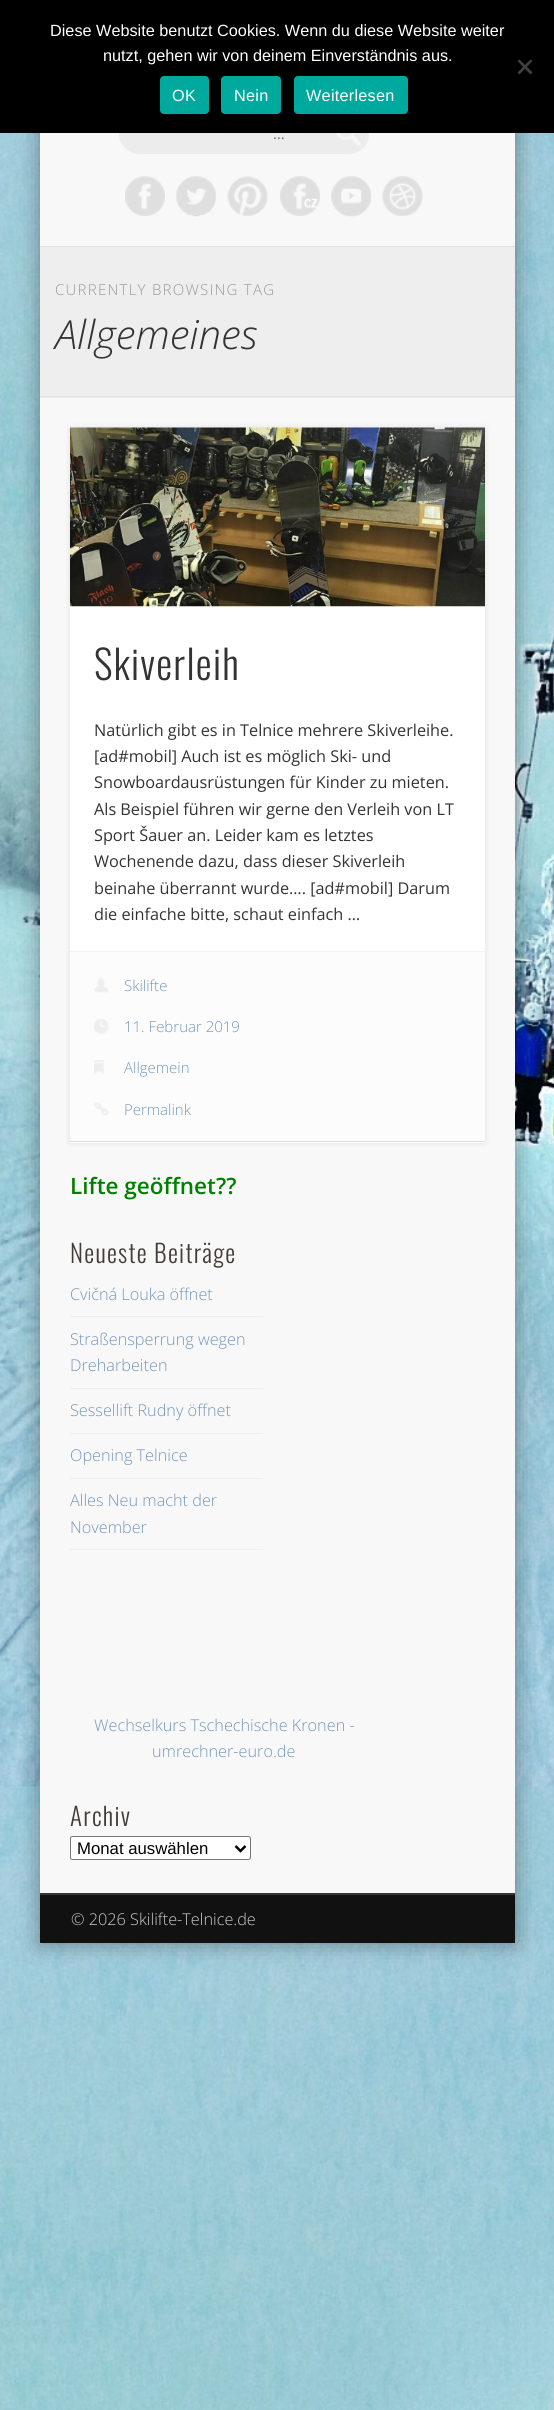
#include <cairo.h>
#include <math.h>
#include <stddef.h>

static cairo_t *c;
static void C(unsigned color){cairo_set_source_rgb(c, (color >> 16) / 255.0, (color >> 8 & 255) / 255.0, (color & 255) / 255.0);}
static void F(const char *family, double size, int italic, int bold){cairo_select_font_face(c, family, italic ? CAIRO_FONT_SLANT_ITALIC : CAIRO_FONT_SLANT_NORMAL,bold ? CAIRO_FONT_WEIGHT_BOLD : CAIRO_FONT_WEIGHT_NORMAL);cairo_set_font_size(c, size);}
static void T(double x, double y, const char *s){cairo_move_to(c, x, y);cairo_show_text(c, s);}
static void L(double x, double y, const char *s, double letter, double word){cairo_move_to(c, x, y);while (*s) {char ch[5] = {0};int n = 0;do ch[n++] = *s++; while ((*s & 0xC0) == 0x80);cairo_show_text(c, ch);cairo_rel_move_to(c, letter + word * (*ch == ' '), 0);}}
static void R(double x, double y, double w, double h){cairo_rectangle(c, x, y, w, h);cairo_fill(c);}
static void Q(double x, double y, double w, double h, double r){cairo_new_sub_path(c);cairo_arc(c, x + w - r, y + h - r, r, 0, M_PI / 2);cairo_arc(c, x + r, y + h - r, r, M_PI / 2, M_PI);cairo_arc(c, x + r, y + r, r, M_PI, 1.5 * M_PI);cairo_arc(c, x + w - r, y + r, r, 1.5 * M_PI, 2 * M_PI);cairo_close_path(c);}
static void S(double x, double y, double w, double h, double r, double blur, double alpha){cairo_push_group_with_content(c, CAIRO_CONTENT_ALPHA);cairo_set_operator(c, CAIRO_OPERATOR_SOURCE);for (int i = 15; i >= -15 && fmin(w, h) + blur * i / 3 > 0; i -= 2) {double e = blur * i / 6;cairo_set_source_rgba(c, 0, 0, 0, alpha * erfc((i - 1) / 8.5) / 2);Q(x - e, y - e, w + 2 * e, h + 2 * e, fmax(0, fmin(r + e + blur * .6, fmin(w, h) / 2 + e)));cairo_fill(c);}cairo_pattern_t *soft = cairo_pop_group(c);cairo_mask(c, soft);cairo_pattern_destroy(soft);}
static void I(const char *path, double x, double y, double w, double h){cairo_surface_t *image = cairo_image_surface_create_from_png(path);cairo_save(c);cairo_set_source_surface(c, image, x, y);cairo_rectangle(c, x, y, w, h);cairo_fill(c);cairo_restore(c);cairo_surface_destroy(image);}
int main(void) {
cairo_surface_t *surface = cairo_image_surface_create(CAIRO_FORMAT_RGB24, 554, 2410);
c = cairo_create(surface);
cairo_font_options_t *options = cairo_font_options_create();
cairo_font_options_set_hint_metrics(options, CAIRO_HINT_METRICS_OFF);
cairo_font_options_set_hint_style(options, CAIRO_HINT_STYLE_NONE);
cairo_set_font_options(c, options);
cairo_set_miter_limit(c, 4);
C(0xffffff);
cairo_paint(c);
I("1.png",0,133,554,2277);
C(0x000000);
S(40,0,475,1943,0,11,.4);
C(0xf8f8f8);
R(40,133,475,1760);
C(0xececec);
Q(119,114,250,40,20);
cairo_fill(c);
C(0x000000);
R(0,0,554,133);
F("Liberation Sans",16.25,0,0);
C(0xffffff);
T(50,36,"Diese Website benutzt Cookies. Wenn du diese Website weiter");
T(103,61,"nutzt, gehen wir von deinem Einverständnis aus.");
C(0x404040);
cairo_new_path(c);
cairo_move_to(c,530.5,59.5);
cairo_line_to(c,532.5,61);
cairo_line_to(c,519.5,74.5);
cairo_line_to(c,517.5,72.5);
cairo_close_path(c);
cairo_fill(c);
cairo_new_path(c);
cairo_move_to(c,517.5,61);
cairo_line_to(c,519.5,59.5);
cairo_line_to(c,532.5,72.5);
cairo_line_to(c,530.5,74.5);
cairo_close_path(c);
cairo_fill(c);
C(0x00a99d);
Q(160,76,49,38,4);
cairo_fill(c);
C(0xffffff);
L(172,101,"OK",.25,0);
C(0x00a99d);
Q(221,76,60,38,4);
cairo_fill(c);
C(0xffffff);
L(234,101,"Nein",.25,0);
C(0x00a99d);
Q(294,76,114,38,4);
cairo_fill(c);
C(0xffffff);
L(306,101,"Weiterlesen",.25,0);
I("2.png",336,133,25,13);
F("Open Sans",15,0,0);
C(0x757575);
T(273,139,"…");
I("3.png",125,176,40,40);
I("4.png",176,176,40,41);
I("5.png",227,176,41,40);
I("6.png",280,176,40,40);
I("7.png",331,176,41,41);
I("8.png",382,176,41,40);
C(0xeeeeee);
R(40,247,475,151);
C(0xe1e1e1);
R(40,246,475,1);
R(40,396,475,1);
F("Open Sans Light",15,0,0);
C(0x999999);
L(55,295,"CURRENTLY BROWSING TAG",1.25,0);
F("Open Sans Light",40,1,0);
C(0x333333);
T(55,349,"Allgemeines");
C(0x000000);
S(70,428,415,715,0,3,.1);
C(0xffffff);
R(70,606,415,537);
C(0xdedede);
R(70,1141,415,1);
I("9.png",70,427,415,180);
F("Oswald Light",40,0,0);
C(0x333333);
L(94,680,"Skiverleih",1.25,0);
F("Open Sans",16.25,0,0);
T(94,736,"Natürlich gibt es in Telnice mehrere Skiverleihe.");
T(94,762,"[ad#mobil] Auch ist es möglich Ski- und");
T(94,788,"Snowboardausrüstungen für Kinder zu mieten.");
T(94,815,"Als Beispiel führen wir gerne den Verleih von LT");
T(94,841,"Sport Šauer an. Leider kam es letztes");
T(94,867,"Wochenende dazu, dass dieser Skiverleih");
T(94,894,"beinahe überrannt wurde…. [ad#mobil] Darum");
T(94,920,"die einfache bitte, schaut einfach …");
C(0xfcfcfc);
R(70,952,415,189);
C(0xf3f3f3);
R(70,951,415,1);
I("10.png",94,977,15,16);
F("Open Sans Light",15,0,0);
C(0x7597b9);
T(124,991,"Skilifte");
I("11.png",94,1019,15,15);
T(124,1032,"11. Februar 2019");
I("12.png",94,1060,10,15);
T(124,1073,"Allgemein");
I("13.png",94,1102,15,14);
T(124,1115,"Permalink");
F("Open Sans SemiBold",22.5,0,0);
C(0x008000);
T(70,1194,"Lifte geöffnet?\077");
F("Oswald Light",25,0,0);
C(0x433c38);
L(70,1263,"Neueste Beiträge",1.25,0);
C(0xeeeeee);
R(70,1316,193,1);
F("Open Sans Light",16.25,0,0);
C(0x7597b9);
T(70,1300,"Cvičná Louka öffnet");
C(0xeeeeee);
R(70,1388,193,1);
C(0x7597b9);
T(70,1345,"Straßensperrung wegen");
T(70,1371,"Dreharbeiten");
C(0xeeeeee);
R(70,1433,193,1);
C(0x7597b9);
T(70,1416,"Sessellift Rudny öffnet");
C(0xeeeeee);
R(70,1478,193,1);
C(0x7597b9);
T(70,1461,"Opening Telnice");
C(0xeeeeee);
R(70,1549,193,1);
C(0x7597b9);
T(70,1506,"Alles Neu macht der");
T(70,1533,"November");
T(94,1731,"Wechselkurs Tschechische Kronen -");
T(152,1757,"umrechner-euro.de");
F("Oswald Light",25,0,0);
C(0x433c38);
L(70,1826,"Archiv",1.25,0);
C(0xffffff);
Q(70.5,1836.5,180,23,2);
cairo_fill_preserve(c);
C(0x767676);
cairo_set_line_width(c,1);
cairo_stroke(c);
cairo_new_path(c);
cairo_move_to(c,235.5,1846);
cairo_line_to(c,240.5,1851);
cairo_line_to(c,245.5,1846);
C(0x000000);
cairo_set_line_width(c,2.5);
cairo_stroke(c);
F("Liberation Sans",16.75,0,0);
T(77,1854,"Monat auswählen");
C(0x343434);
R(40,1893,475,2);
C(0x111111);
R(40,1895,475,48);
F("Open Sans Light",16.25,0,0);
C(0xcccccc);
T(71,1925,"© 2026 Skilifte-Telnice.de");
cairo_surface_write_to_png(surface, "o.png");
cairo_font_options_destroy(options);
cairo_destroy(c);
cairo_surface_destroy(surface);
return 0;
}
